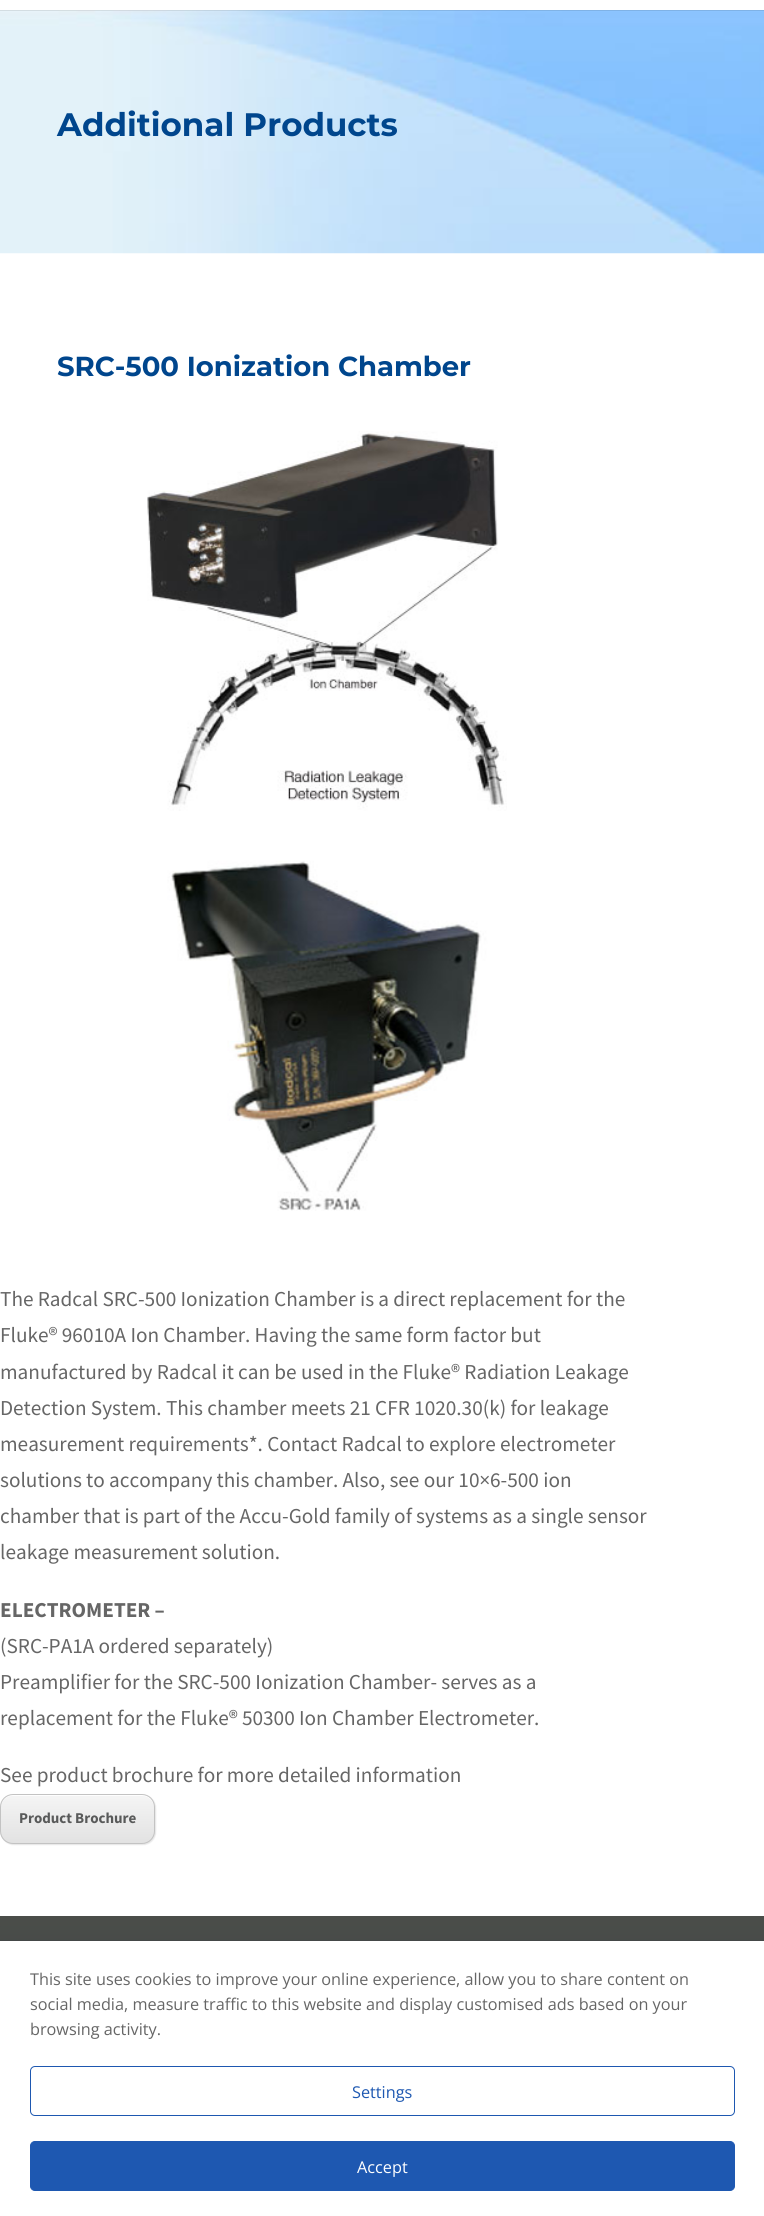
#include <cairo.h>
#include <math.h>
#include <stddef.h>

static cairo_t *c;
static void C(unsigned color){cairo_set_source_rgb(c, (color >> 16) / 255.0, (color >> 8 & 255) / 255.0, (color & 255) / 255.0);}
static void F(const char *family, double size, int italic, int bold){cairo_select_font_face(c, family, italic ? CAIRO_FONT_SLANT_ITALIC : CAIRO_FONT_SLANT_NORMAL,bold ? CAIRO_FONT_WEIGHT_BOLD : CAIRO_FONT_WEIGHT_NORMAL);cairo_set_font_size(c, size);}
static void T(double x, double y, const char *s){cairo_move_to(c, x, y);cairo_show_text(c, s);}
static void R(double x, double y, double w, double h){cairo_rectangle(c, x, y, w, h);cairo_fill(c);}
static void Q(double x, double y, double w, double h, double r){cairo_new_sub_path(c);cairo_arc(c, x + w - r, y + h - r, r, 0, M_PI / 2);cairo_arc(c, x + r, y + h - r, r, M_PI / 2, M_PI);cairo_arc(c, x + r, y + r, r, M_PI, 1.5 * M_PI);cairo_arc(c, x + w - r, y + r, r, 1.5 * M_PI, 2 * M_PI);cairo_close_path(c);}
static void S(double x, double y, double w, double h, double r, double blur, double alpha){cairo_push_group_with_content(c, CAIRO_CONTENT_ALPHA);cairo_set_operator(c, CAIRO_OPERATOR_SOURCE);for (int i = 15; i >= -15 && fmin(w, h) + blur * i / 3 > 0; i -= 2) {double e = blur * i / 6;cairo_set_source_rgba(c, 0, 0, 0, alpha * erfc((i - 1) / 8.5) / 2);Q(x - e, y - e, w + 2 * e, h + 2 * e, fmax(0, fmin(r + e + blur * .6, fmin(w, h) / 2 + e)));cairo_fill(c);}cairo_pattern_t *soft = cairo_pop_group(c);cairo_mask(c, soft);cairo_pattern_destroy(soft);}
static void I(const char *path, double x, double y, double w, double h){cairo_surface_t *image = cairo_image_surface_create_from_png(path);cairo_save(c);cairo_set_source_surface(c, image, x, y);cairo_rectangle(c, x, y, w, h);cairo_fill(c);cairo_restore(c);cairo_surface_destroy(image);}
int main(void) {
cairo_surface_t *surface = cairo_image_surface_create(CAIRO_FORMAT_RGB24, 764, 2216);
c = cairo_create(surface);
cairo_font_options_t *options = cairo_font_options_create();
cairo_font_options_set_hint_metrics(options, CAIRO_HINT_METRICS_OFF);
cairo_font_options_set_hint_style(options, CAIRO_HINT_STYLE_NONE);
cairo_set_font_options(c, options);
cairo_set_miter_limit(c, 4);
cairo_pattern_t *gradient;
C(0x4a4d49);
cairo_paint(c);
C(0xffffff);
R(0,253,764,1663);
I("1.png",0,10,764,244);
cairo_set_source_rgba(c,0,0,0,0.1);
R(0,10,764,1);
C(0xffffff);
R(0,0,764,10);
F("Montserrat",32.5,0,1);
C(0x00468d);
T(57,136,"Additional Products");
F("Montserrat",27.5,0,1);
T(57,376,"SRC-500 Ionization Chamber");
I("2.png",147,431,360,780);
F("Source Sans Pro",21.25,0,0);
C(0x666666);
T(0,1306,"The Radcal SRC-500 Ionization Chamber is a direct replacement for the");
T(0,1342,"Fluke® 96010A Ion Chamber. Having the same form factor but");
T(0,1379,"manufactured by Radcal it can be used in the Fluke® Radiation Leakage");
T(0,1415,"Detection System. This chamber meets 21 CFR 1020.30(k) for leakage");
T(0,1451,"measurement requirements*. Contact Radcal to explore electrometer");
T(0,1487,"solutions to accompany this chamber. Also, see our 10×6-500 ion");
T(0,1523,"chamber that is part of the Accu-Gold family of systems as a single sensor");
T(0,1559,"leakage measurement solution.");
F("Source Sans Pro",21.25,0,1);
T(0,1617,"ELECTROMETER –");
F("Source Sans Pro",21.25,0,0);
T(0,1653,"(SRC-PA1A ordered separately)");
T(0,1689,"Preamplifier for the SRC-500 Ionization Chamber- serves as a");
T(0,1725,"replacement for the Fluke® 50300 Ion Chamber Electrometer.");
T(0,1782,"See product brochure for more detailed information");
C(0x000000);
S(1,1795,155,50,13,.5,.1);
cairo_save(c);
Q(0,1794,155,50,13);
cairo_clip(c);
gradient = cairo_pattern_create_linear(78,1795,78,1843);
cairo_pattern_add_color_stop_rgba(gradient,0,0.961,0.961,0.961,1);
cairo_pattern_add_color_stop_rgba(gradient,1,0.886,0.886,0.886,1);
cairo_set_source(c,gradient);
cairo_pattern_destroy(gradient);
R(0,1795,155,48);
cairo_restore(c);
cairo_set_source_rgba(c,1,1,1,0.9);
cairo_new_path(c);
cairo_move_to(c,12,1796);
cairo_line_to(c,142,1796);
cairo_curve_to(c,149,1796,154,1801,154,1808);
cairo_curve_to(c,154,1790,134,1795,121,1795);
cairo_line_to(c,34,1795);
cairo_curve_to(c,21,1795,1,1790,1,1808);
cairo_curve_to(c,1,1801,6,1796,12,1796);
cairo_close_path(c);
cairo_fill(c);
Q(.5,1794.5,154,49,12.5);
C(0xc3c3c3);
cairo_set_line_width(c,1);
cairo_stroke(c);
F("Source Sans Pro",15,0,1);
C(0x595a5a);
T(19,1823,"Product Brochure");
C(0x242f42);
S(-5,1949,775,260,0,12.5,.31);
cairo_rectangle(c,-.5,1940.5,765,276);
C(0x444848);
cairo_stroke(c);
C(0xffffff);
R(0,1941,764,275);
F("Open Sans",16.25,0,0);
C(0x666666);
T(30,1985,"This site uses cookies to improve your online experience, allow you to share content on");
T(30,2010,"social media, measure traffic to this website and display customised ads based on your");
T(30,2035,"browsing activity.");
Q(30.5,2066.5,704,49,4.5);
C(0x1e58b1);
cairo_stroke(c);
T(352,2098,"Settings");
Q(30.5,2141.5,704,49,4.5);
cairo_fill_preserve(c);
cairo_stroke(c);
C(0xffffff);
T(357,2173,"Accept");
cairo_surface_write_to_png(surface, "o.png");
cairo_font_options_destroy(options);
cairo_destroy(c);
cairo_surface_destroy(surface);
return 0;
}
